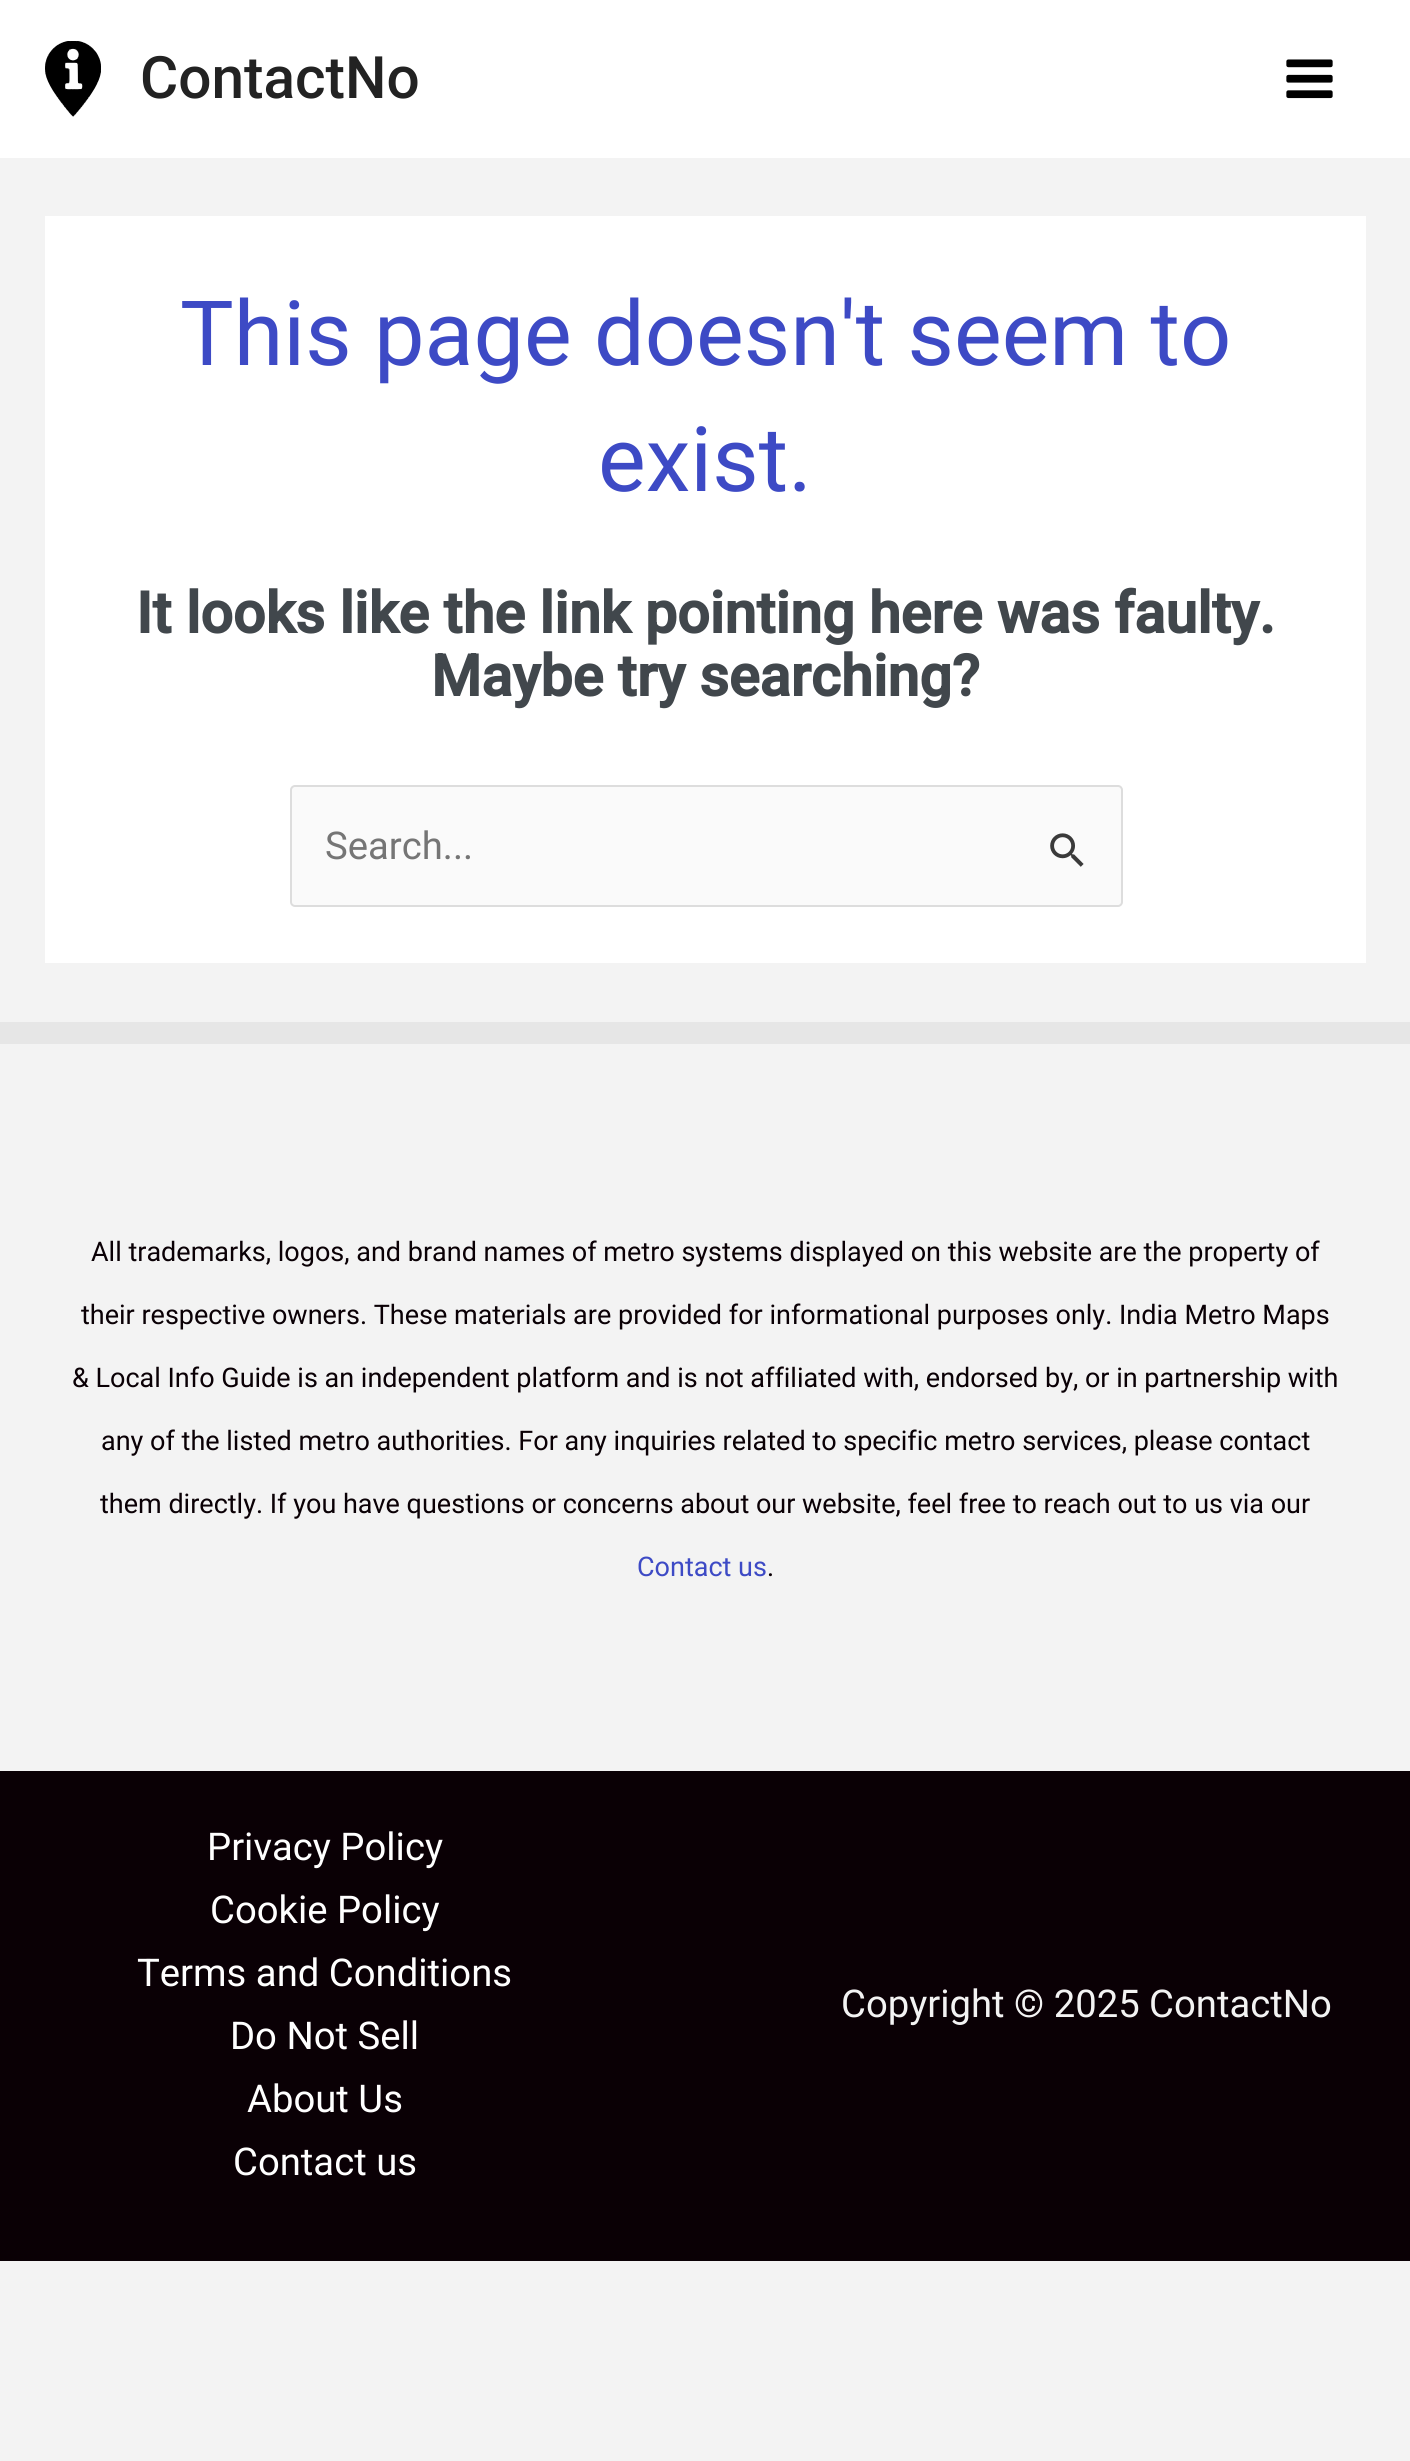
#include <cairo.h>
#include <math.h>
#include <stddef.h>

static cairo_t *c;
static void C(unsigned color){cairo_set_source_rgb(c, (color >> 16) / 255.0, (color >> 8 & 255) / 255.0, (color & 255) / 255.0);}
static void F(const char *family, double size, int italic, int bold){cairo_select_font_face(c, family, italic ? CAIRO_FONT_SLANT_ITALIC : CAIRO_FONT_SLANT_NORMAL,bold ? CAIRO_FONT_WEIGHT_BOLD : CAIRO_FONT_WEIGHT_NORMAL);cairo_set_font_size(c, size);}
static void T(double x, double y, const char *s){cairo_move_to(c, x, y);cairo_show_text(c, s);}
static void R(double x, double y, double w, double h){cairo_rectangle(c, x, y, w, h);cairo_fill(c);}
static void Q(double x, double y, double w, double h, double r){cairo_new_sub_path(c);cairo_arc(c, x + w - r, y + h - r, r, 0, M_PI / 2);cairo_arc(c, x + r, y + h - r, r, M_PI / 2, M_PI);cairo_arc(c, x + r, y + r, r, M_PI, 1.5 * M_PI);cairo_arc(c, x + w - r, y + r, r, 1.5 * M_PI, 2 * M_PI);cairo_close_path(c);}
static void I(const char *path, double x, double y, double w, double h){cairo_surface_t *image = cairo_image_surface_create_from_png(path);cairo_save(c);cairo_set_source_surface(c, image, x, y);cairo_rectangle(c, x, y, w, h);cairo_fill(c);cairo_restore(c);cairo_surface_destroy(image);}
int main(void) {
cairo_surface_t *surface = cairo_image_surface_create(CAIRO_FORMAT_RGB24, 1410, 2461);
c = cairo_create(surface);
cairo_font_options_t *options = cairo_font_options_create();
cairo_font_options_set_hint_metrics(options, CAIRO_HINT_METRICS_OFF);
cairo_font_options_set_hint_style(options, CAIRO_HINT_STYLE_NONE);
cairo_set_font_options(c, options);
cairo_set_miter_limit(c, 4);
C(0xf3f3f3);
cairo_paint(c);
C(0xffffff);
R(0,0,1410,158);
I("1.png",45,41,56,76);
F("Roboto Medium",58.5,0,0);
C(0x222222);
T(140,98,"ContactNo");
I("2.png",1286,59,47,40);
C(0xffffff);
R(45,216,1321,747);
F("Roboto",90,0,0);
C(0x3d4ac5);
T(180,365,"This page doesn't seem to");
T(598,491,"exist.");
F("Roboto",57.4,0,1);
C(0x41474c);
T(136,633,"It looks like the link pointing here was faulty.");
T(431,696,"Maybe try searching?");
C(0xfafafa);
Q(291,786,831,120,4);
cairo_fill_preserve(c);
C(0xdddddd);
cairo_stroke(c);
F("Roboto",38.25,0,0);
C(0x757575);
T(325,859,"Search...");
I("3.png",1050,833,34,34);
C(0xe6e6e6);
R(0,1022,1410,22);
F("Roboto",27,0,0);
C(0x0a0005);
T(91,1261,"All trademarks, logos, and brand names of metro systems displayed on this website are the property of");
T(81,1324,"their respective owners. These materials are provided for informational purposes only. India Metro Maps");
T(72,1387,"& Local Info Guide is an independent platform and is not affiliated with, endorsed by, or in partnership with");
T(101,1450,"any of the listed metro authorities. For any inquiries related to specific metro services, please contact");
T(100,1513,"them directly. If you have questions or concerns about our website, feel free to reach out to us via our");
C(0x3d4ac5);
T(637,1576,"Contact us");
C(0x0a0005);
T(767,1576,".");
R(0,1771,1410,490);
F("Roboto",38.25,0,0);
C(0xffffff);
T(207,1860,"Privacy Policy");
T(210,1923,"Cookie Policy");
T(137,1986,"Terms and Conditions");
T(230,2049,"Do Not Sell");
T(247,2112,"About Us");
T(233,2175,"Contact us");
C(0xf3f3f3);
T(841,2017,"Copyright © 2025 ContactNo");
cairo_surface_write_to_png(surface, "o.png");
cairo_font_options_destroy(options);
cairo_destroy(c);
cairo_surface_destroy(surface);
return 0;
}
